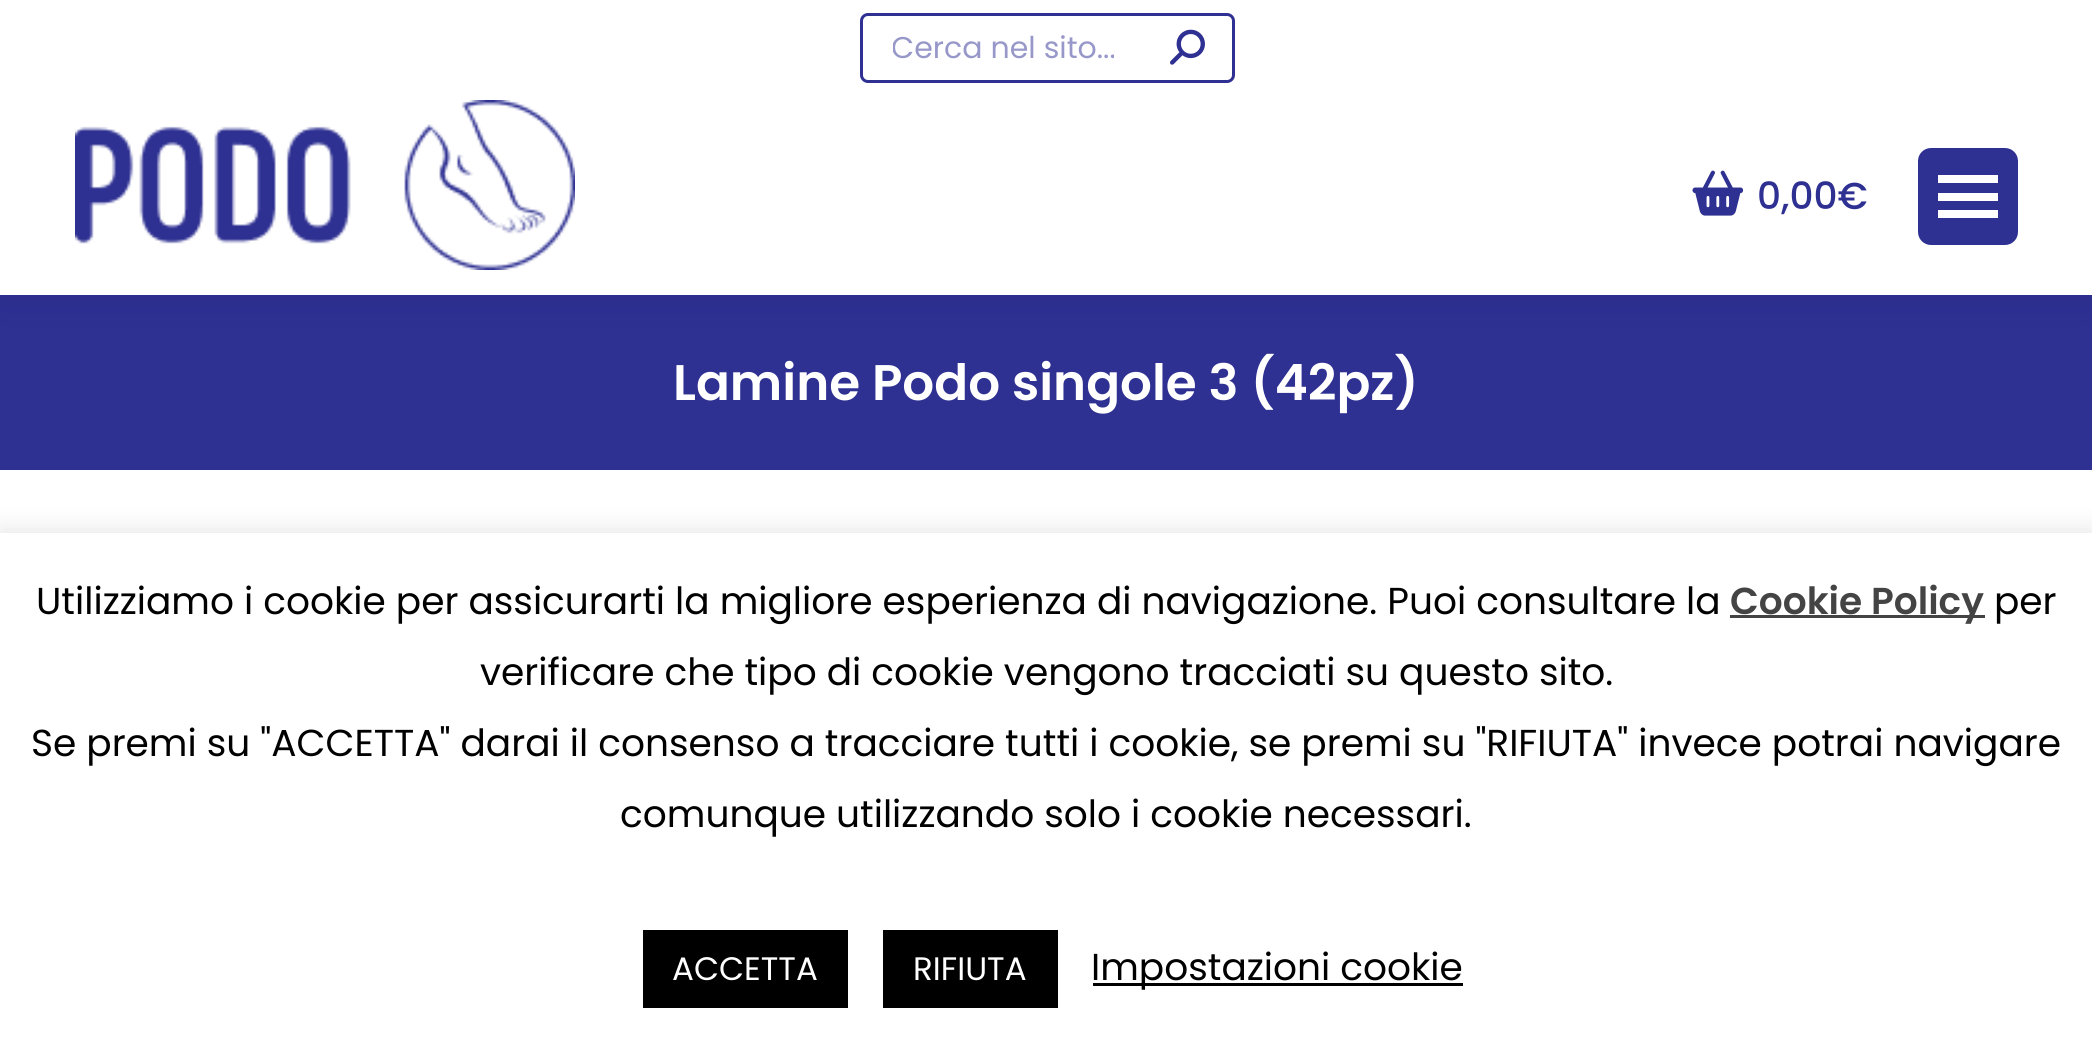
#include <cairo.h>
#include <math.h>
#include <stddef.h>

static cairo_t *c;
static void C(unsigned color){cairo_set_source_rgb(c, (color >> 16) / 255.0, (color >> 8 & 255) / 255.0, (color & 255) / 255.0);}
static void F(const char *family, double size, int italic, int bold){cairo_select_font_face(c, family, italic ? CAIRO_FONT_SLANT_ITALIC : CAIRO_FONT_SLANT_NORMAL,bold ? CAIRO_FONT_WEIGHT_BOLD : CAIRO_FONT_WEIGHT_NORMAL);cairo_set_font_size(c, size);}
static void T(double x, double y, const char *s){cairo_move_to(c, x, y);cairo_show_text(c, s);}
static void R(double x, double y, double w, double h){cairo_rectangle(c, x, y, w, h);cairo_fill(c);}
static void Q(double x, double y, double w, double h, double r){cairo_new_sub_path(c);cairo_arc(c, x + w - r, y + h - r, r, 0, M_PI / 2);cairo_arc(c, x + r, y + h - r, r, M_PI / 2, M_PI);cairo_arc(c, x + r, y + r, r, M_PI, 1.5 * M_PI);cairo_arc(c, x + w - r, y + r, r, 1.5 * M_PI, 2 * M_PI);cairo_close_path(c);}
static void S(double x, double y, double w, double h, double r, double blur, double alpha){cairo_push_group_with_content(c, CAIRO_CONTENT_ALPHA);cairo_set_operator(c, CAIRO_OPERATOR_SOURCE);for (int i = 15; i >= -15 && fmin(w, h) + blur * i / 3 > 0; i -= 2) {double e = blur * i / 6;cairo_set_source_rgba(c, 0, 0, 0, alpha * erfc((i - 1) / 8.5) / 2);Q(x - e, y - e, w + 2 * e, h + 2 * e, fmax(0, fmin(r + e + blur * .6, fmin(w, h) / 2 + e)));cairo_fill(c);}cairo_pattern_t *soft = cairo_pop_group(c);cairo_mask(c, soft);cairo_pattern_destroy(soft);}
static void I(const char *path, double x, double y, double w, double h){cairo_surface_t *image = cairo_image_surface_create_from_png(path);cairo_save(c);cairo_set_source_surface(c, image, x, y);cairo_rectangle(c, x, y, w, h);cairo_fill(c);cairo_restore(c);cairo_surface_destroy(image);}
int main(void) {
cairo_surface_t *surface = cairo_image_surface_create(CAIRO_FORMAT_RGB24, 2092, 1037);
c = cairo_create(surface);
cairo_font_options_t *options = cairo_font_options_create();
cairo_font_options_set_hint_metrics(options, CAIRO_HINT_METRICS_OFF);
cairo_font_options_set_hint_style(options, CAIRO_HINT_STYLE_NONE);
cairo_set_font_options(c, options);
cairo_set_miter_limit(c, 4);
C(0xffffff);
cairo_paint(c);
C(0x2e3092);
R(0,295,2092,175);
C(0x000000);
S(-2,-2,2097,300,0,19,.07);
C(0xffffff);
R(0,0,2092,295);
Q(861.5,14.5,372,67,6.5);
C(0x2e3092);
cairo_set_line_width(c,3);
cairo_stroke(c);
cairo_save(c);
cairo_rectangle(c,893,25,310,45);
cairo_clip(c);
F("Poppins",30,0,0);
C(0x9798c9);
T(891,58,"Cerca nel sito...");
cairo_restore(c);
I("1.png",1170,29,35,36);
I("2.png",75,100,500,170);
I("3.png",1692,170,52,46);
F("Poppins Medium",37.5,0,0);
T(1757,209,"0,00€");
Q(1918,148,100,97,13);
cairo_fill(c);
C(0xffffff);
R(1938,175,60,8);
R(1938,193,60,8);
R(1938,210,60,8);
F("Poppins SemiBold",50,0,0);
T(673,400,"Lamine Podo singole 3 (42pz)");
C(0xacabab);
S(0,530,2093,505,0,12.5,.3);
C(0xffffff);
R(0,533,2092,504);
F("Poppins",37.5,0,0);
C(0x000000);
T(36,614,"Utilizziamo i cookie per assicurarti la migliore esperienza di navigazione. Puoi consultare la");
C(0x444444);
R(1730,615,255,3);
F("Poppins SemiBold",37.5,0,0);
T(1730,614,"Cookie Policy");
F("Poppins",37.5,0,0);
C(0x000000);
T(1994,614,"per");
T(480,685,"verificare che tipo di cookie vengono tracciati su questo sito.");
T(31,756,"Se premi su \"ACCETTA\" darai il consenso a tracciare tutti i cookie, se premi su \"RIFIUTA\" invece potrai navigare");
T(620,827,"comunque utilizzando solo i cookie necessari.");
R(643,930,205,78);
F("Poppins",32.5,0,0);
C(0xffffff);
T(672,980,"ACCETTA");
C(0x000000);
R(883,930,175,78);
C(0xffffff);
T(913,980,"RIFIUTA");
C(0x000000);
R(1093,983,370,3);
F("Poppins",37.5,0,0);
T(1091,980,"Impostazioni cookie");
cairo_surface_write_to_png(surface, "o.png");
cairo_font_options_destroy(options);
cairo_destroy(c);
cairo_surface_destroy(surface);
return 0;
}
